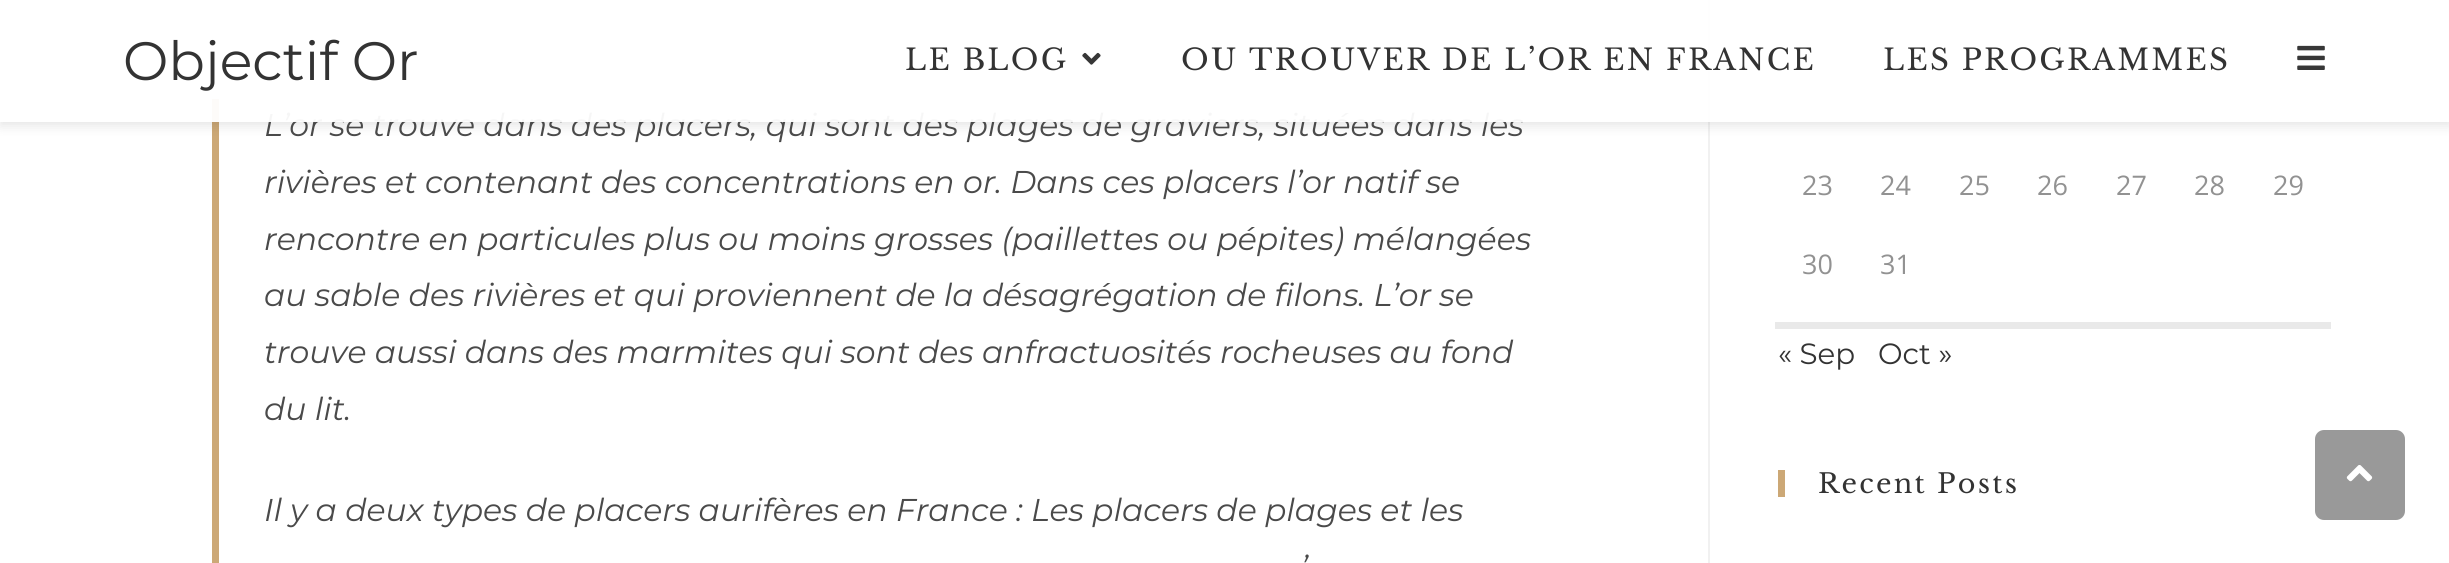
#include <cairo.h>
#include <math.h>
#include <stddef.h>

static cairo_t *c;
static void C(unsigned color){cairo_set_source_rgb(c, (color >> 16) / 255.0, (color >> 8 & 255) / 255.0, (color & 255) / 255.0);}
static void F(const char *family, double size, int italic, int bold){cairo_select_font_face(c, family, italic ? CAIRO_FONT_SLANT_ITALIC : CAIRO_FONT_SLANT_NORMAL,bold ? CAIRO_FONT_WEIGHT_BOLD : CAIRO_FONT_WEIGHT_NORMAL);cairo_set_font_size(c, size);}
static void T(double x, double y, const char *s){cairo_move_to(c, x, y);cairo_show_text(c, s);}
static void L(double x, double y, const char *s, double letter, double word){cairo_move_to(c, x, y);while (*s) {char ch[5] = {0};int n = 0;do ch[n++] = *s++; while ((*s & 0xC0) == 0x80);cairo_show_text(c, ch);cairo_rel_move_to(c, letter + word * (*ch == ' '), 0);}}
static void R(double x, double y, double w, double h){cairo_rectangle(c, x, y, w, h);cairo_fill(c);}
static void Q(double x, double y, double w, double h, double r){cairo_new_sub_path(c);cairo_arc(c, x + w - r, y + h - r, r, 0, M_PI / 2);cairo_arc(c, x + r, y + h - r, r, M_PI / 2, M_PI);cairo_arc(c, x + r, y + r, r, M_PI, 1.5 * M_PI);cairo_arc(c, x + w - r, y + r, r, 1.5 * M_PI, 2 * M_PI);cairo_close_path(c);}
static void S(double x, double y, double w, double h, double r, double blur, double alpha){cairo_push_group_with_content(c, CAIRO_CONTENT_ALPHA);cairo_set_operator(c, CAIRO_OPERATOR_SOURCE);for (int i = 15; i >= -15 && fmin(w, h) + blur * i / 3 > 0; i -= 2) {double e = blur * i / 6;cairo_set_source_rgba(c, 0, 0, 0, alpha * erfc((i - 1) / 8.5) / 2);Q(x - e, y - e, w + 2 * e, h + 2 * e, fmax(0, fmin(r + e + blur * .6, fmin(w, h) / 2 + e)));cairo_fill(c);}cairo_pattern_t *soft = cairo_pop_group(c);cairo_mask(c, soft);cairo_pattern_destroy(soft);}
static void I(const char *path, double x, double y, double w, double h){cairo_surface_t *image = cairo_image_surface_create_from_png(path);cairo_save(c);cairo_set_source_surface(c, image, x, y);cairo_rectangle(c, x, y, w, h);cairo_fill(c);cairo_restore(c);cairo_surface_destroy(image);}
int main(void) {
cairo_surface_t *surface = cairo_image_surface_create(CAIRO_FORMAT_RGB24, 2449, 563);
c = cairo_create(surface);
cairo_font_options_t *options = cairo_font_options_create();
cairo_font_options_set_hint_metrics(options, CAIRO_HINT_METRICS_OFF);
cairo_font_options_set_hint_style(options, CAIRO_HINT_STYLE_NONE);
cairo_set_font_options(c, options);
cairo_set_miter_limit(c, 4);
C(0xffffff);
cairo_paint(c);
C(0xf1f1f1);
R(1708,0,2,563);
C(0xcca876);
R(212,99,7,464);
cairo_save(c);
cairo_set_fill_rule(c,CAIRO_FILL_RULE_EVEN_ODD);
cairo_new_path(c);
cairo_move_to(c,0,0);
cairo_line_to(c,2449,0);
cairo_line_to(c,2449,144);
cairo_line_to(c,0,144);
cairo_close_path(c);
cairo_move_to(c,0,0);
cairo_line_to(c,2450,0);
cairo_line_to(c,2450,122);
cairo_line_to(c,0,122);
cairo_close_path(c);
cairo_clip(c);
C(0x000000);
S(0,5,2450,121,0,5.5,.1);
cairo_restore(c);
F("Montserrat",31.5,1,0);
C(0x4a4a4a);
T(264,136,"L’or se trouve dans des placers, qui sont des plages de graviers, situées dans les");
cairo_set_source_rgba(c,1,1,1,0.95);
R(0,0,2449,122);
F("Montserrat",54,0,0);
C(0x333333);
T(123,80,"Objectif Or");
F("Libre Baskerville",29.25,0,0);
L(905,70,"LE BLOG",2.25,0);
I("1.png",1082,52,19,13);
L(1181,70,"OU TROUVER DE L’OR EN FRANCE",2.25,0);
L(1883,70,"LES PROGRAMMES",2.25,0);
I("2.png",2297,45,28,25);
F("Montserrat",31.5,1,0);
C(0x4a4a4a);
T(264,193,"rivières et contenant des concentrations en or. Dans ces placers l’or natif se");
T(264,250,"rencontre en particules plus ou moins grosses (paillettes ou pépites) mélangées");
T(264,306,"au sable des rivières et qui proviennent de la désagrégation de filons. L’or se");
T(264,363,"trouve aussi dans des marmites qui sont des anfractuosités rocheuses au fond");
T(264,420,"du lit.");
T(264,521,"Il y a deux types de placers aurifères en France : Les placers de plages et les");
T(1301,578,"’");
C(0xe9e9e9);
R(1775,322,556,7);
F("Open Sans",27,0,0);
C(0x929292);
T(1802,195,"23");
T(1880,195,"24");
T(1959,195,"25");
T(2037,195,"26");
T(2116,195,"27");
T(2194,195,"28");
T(2273,195,"29");
T(1802,274,"30");
T(1880,274,"31");
F("Montserrat",29.25,0,0);
C(0x333333);
T(1778,364,"« Sep");
T(1878,364,"Oct »");
C(0xcca876);
R(1778,470,7,27);
F("Libre Baskerville",27,0,0);
C(0x333333);
L(1818,493,"Recent Posts",2.25,0);
C(0x999999);
Q(2315,430,90,90,9);
cairo_fill(c);
I("3.png",2346,465,27,17);
cairo_surface_write_to_png(surface, "o.png");
cairo_font_options_destroy(options);
cairo_destroy(c);
cairo_surface_destroy(surface);
return 0;
}
